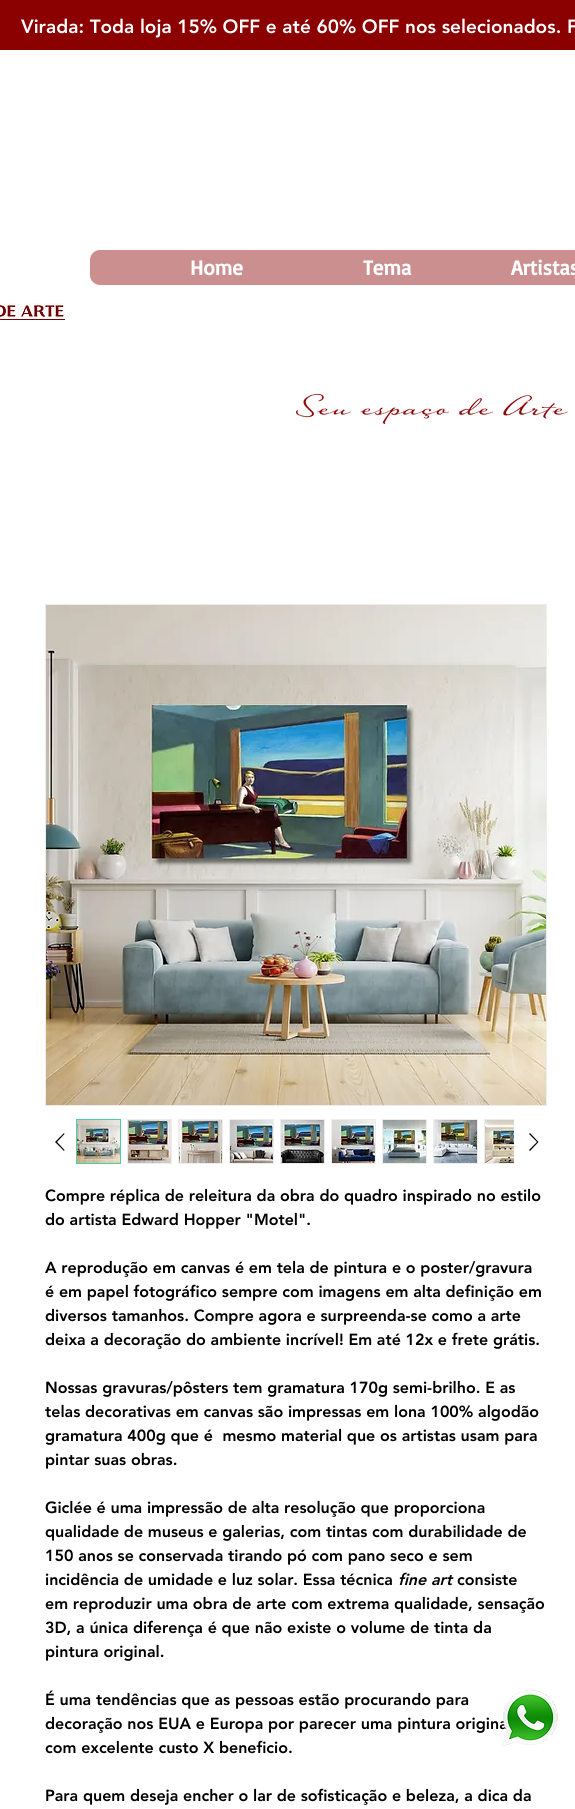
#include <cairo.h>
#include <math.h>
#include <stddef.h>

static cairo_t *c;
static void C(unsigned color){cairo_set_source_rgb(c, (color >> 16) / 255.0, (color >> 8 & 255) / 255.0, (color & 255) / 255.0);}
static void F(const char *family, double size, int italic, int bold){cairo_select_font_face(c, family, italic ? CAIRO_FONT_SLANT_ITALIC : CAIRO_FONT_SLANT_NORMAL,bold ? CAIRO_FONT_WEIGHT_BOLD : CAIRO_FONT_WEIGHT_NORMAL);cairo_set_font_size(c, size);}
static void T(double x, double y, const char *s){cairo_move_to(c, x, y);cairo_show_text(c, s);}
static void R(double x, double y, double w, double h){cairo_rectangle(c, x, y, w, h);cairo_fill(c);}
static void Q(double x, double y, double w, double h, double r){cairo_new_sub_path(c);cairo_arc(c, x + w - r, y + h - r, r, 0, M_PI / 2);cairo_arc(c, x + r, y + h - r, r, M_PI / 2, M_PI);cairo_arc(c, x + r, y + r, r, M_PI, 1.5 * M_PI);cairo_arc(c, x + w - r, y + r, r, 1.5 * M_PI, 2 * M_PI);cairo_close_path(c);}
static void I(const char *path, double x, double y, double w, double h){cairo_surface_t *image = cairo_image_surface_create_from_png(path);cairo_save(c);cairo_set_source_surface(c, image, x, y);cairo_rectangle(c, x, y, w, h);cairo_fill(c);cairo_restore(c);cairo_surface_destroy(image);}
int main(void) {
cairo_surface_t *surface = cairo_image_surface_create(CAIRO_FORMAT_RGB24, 575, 1809);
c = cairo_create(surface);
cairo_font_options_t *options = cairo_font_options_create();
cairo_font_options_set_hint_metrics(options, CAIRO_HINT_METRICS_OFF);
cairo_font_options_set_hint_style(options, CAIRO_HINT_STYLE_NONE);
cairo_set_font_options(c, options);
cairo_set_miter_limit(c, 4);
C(0xffffff);
cairo_paint(c);
C(0x8b0000);
R(0,0,575,50);
F("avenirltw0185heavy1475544 Black",19,0,0);
C(0xffffff);
T(21,33,"Virada: Toda loja 15% OFF e até 60% OFF nos selecionados. F");
C(0xcc8f8f);
Q(90,250,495,35,10);
cairo_fill(c);
F("Basic",21,0,1);
C(0xffffff);
T(190,275,"Home");
T(363,275,"Tema");
T(511,275,"Artistas");
I("1.png",0,303,65,17);
I("2.png",296,394,272,30);
cairo_rectangle(c,45.5,604.5,501,501);
C(0xededed);
cairo_set_line_width(c,1);
cairo_stroke(c);
I("3.png",46,605,500,500);
C(0x000000);
cairo_set_fill_rule(c,CAIRO_FILL_RULE_EVEN_ODD);
cairo_new_path(c);
cairo_move_to(c,64,1133);
cairo_line_to(c,64.5,1134);
cairo_line_to(c,57,1142);
cairo_line_to(c,64.5,1150);
cairo_line_to(c,64,1151);
cairo_line_to(c,55,1142);
cairo_close_path(c);
cairo_fill(c);
cairo_rectangle(c,76.5,1119.5,44,44);
C(0x4bd1a0);
cairo_stroke(c);
I("4.png",77,1120,43,43);
C(0xededed);
R(127,1119,45,45);
I("5.png",128,1120,43,43);
R(178,1119,45,45);
I("6.png",179,1120,43,43);
R(229,1119,45,45);
I("7.png",230,1120,43,43);
R(280,1119,45,45);
I("8.png",281,1120,43,43);
R(331,1119,45,45);
I("9.png",332,1120,43,43);
R(382,1119,45,45);
I("10.png",383,1120,43,43);
R(433,1119,45,45);
I("11.png",434,1120,43,43);
R(484,1119,30,45);
I("12.png",485,1120,29,43);
C(0x000000);
cairo_new_path(c);
cairo_move_to(c,530,1133);
cairo_line_to(c,538.5,1142);
cairo_line_to(c,530,1151);
cairo_line_to(c,529,1150);
cairo_line_to(c,537,1142);
cairo_line_to(c,529,1134);
cairo_close_path(c);
cairo_fill(c);
F("avenirltw0185heavy1475544 Black",16,0,0);
T(45,1201,"Compre réplica de releitura da obra do quadro inspirado no estilo");
T(45,1225,"do artista Edward Hopper \"Motel\".");
T(45,1273,"A reprodução em canvas é em tela de pintura e o poster/gravura");
T(45,1297,"é em papel fotográfico sempre com imagens em alta definição em");
T(45,1321,"diversos tamanhos. Compre agora e surpreenda-se como a arte");
T(45,1345,"deixa a decoração do ambiente incrível! Em até 12x e frete grátis.");
T(45,1393,"Nossas gravuras/pôsters tem gramatura 170g semi-brilho. E as");
T(45,1417,"telas decorativas em canvas são impressas em lona 100% algodão");
T(45,1441,"gramatura 400g que é  mesmo material que os artistas usam para");
T(45,1465,"pintar suas obras.");
T(45,1513,"Giclée é uma impressão de alta resolução que proporciona");
T(45,1537,"qualidade de museus e galerias, com tintas com durabilidade de");
T(45,1561,"150 anos se conservada tirando pó com pano seco e sem");
T(45,1585,"incidência de umidade e luz solar. Essa técnica");
F("avenirltw0185heavy1475544 Black",16,1,0);
T(398,1585,"fine art");
F("avenirltw0185heavy1475544 Black",16,0,0);
T(457,1585,"consiste");
T(45,1609,"em reproduzir uma obra de arte com extrema qualidade, sensação");
T(45,1633,"3D, a única diferença é que não existe o volume de tinta da");
T(45,1657,"pintura original.");
T(45,1705,"É uma tendências que as pessoas estão procurando para");
T(45,1729,"decoração nos EUA e Europa por parecer uma pintura origina");
T(45,1753,"com excelente custo X beneficio.");
T(45,1801,"Para quem deseja encher o lar de sofisticação e beleza, a dica da");
I("13.png",502,1690,56,57);
cairo_surface_write_to_png(surface, "o.png");
cairo_font_options_destroy(options);
cairo_destroy(c);
cairo_surface_destroy(surface);
return 0;
}
